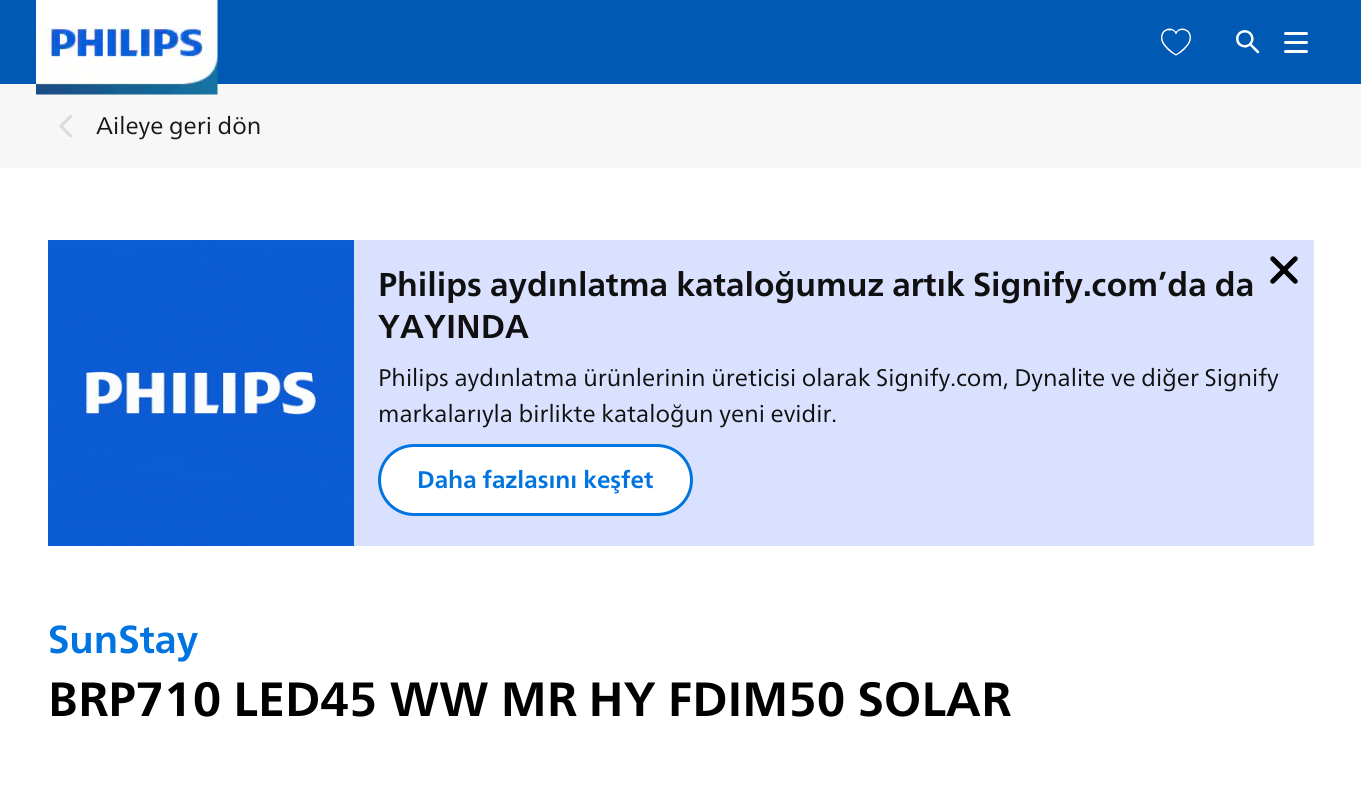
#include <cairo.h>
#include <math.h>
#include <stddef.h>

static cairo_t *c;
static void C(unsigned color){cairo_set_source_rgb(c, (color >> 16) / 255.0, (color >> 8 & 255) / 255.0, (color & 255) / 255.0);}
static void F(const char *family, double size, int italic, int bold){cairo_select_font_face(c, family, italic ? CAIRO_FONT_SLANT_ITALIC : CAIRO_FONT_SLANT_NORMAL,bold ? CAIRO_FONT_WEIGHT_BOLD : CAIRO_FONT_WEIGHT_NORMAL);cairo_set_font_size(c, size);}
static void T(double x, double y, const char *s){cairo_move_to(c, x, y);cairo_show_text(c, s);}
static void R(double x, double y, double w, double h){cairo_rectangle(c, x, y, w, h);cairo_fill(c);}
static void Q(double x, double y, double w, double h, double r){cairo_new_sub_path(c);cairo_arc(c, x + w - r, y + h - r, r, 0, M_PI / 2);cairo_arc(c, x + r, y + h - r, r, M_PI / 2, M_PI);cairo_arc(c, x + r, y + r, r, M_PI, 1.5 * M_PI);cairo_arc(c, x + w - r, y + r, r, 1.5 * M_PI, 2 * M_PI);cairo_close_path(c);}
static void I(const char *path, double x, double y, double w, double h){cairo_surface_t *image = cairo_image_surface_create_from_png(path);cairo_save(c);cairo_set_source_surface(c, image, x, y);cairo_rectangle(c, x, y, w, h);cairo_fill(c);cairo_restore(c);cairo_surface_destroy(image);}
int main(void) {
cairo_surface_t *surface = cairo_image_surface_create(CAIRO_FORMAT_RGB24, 1361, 800);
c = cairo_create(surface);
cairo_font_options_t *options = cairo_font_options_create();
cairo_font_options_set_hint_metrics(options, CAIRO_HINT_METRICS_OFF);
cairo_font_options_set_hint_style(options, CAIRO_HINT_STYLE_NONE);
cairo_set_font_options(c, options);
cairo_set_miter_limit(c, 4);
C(0xffffff);
cairo_paint(c);
C(0x0059b3);
R(0,0,1361,84);
C(0xf7f7f7);
R(0,84,1361,84);
I("1.png",36,0,182,95);
I("2.png",1161,28,30,28);
I("3.png",1236,30,24,24);
C(0xffffff);
Q(1284,32,24,3,1.5);
cairo_fill(c);
Q(1284,41,24,3,1.5);
cairo_fill(c);
Q(1284,50,24,3,1.5);
cairo_fill(c);
I("4.png",59,115,13,23);
F("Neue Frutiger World",24,0,0);
C(0x171717);
T(96,134,"Aileye geri dön");
C(0xdae1ff);
R(354,240,960,306);
I("5.png",48,240,306,306);
F("Neue Frutiger World",33,0,1);
C(0x101010);
T(378,296,"Philips aydınlatma kataloğumuz artık Signify.com’da da");
T(378,338,"YAYINDA");
F("Neue Frutiger World",24,0,0);
T(378,386,"Philips aydınlatma ürünlerinin üreticisi olarak Signify.com, Dynalite ve diğer Signify");
T(378,422,"markalarıyla birlikte kataloğun yeni evidir.");
C(0xffffff);
Q(379.5,445.5,312,69,34.5);
cairo_fill_preserve(c);
C(0x0074e0);
cairo_set_line_width(c,3);
cairo_stroke(c);
F("Neue Frutiger World",24,0,1);
T(417,488,"Daha fazlasını keşfet");
I("6.png",1270,256,28,28);
F("Neue Frutiger World",39,0,1);
T(48,653,"SunStay");
F("Neue Frutiger World",48,0,1);
C(0x000000);
T(48,716,"BRP710 LED45 WW MR HY FDIM50 SOLAR");
cairo_surface_write_to_png(surface, "o.png");
cairo_font_options_destroy(options);
cairo_destroy(c);
cairo_surface_destroy(surface);
return 0;
}
